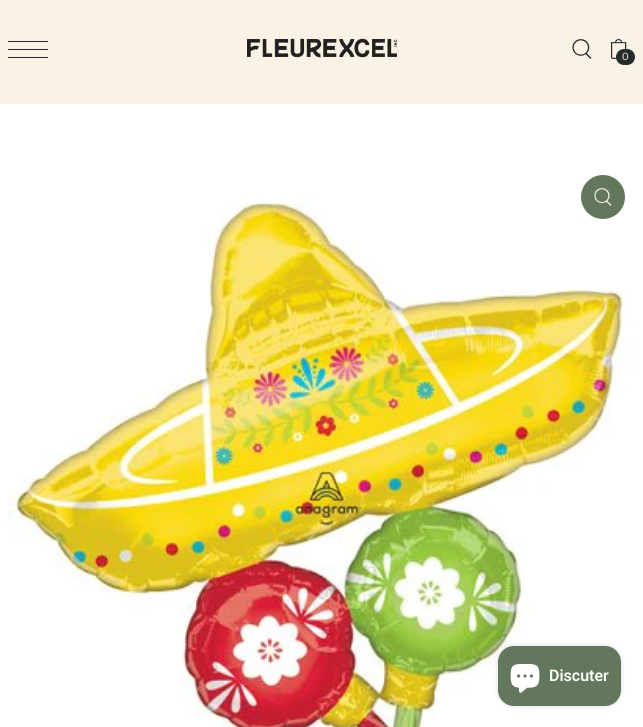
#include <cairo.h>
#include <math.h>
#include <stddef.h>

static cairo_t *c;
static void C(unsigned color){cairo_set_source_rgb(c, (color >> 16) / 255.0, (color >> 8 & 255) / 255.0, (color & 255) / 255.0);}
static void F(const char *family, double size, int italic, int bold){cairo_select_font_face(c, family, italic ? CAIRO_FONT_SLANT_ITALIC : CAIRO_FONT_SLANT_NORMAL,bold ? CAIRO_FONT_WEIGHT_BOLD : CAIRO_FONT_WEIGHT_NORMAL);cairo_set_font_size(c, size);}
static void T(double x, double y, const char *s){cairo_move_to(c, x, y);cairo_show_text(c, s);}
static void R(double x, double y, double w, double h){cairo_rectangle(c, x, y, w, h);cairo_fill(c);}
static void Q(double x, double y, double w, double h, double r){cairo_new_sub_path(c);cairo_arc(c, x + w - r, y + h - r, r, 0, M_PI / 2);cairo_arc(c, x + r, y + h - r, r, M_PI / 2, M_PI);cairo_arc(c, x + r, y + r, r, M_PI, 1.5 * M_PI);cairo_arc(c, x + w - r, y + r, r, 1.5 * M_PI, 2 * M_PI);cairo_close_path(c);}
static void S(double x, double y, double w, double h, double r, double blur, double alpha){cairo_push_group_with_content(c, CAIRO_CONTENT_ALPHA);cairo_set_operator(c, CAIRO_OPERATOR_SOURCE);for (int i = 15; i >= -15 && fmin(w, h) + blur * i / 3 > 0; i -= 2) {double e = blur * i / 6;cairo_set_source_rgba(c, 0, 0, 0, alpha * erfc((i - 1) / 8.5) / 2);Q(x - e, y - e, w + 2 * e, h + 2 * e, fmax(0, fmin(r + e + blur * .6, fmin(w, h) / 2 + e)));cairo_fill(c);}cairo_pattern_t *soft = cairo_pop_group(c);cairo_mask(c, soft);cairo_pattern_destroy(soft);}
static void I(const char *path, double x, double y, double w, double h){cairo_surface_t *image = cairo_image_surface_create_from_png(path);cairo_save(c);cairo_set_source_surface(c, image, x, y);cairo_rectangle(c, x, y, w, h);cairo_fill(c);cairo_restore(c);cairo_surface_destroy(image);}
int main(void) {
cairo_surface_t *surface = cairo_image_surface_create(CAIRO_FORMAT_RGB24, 643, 727);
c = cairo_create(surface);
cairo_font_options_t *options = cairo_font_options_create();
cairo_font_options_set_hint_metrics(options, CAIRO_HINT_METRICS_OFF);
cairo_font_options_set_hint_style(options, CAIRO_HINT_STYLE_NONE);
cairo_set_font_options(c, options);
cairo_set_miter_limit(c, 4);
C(0xffffff);
cairo_paint(c);
C(0xf9f2e5);
R(0,0,643,104);
C(0x262b2c);
R(8,41,40,1);
R(8,49,40,1);
R(8,57,40,1);
I("1.png",247,38,150,20);
I("2.png",572,39,20,20);
I("3.png",611,39,16,20);
Q(616,49,19,16,8);
cairo_fill(c);
F("Instrument Sans",10,0,0);
C(0xf9f2e5);
T(622,60,"0");
I("5.png",8,190,627,537);
C(0x63775d);
cairo_arc(c,603,197,22,0,2 * M_PI);
cairo_fill(c);
I("4.png",594,188,18,18);
C(0x000000);
S(498,646,123,60,16,2.5,.15);
C(0x63775d);
Q(498,646,123,60,16);
cairo_fill(c);
I("6.png",510,664,30,29);
F("Roboto SemiBold",16,0,0);
C(0xffffff);
T(549,681,"Discuter");
cairo_surface_write_to_png(surface, "o.png");
cairo_font_options_destroy(options);
cairo_destroy(c);
cairo_surface_destroy(surface);
return 0;
}
